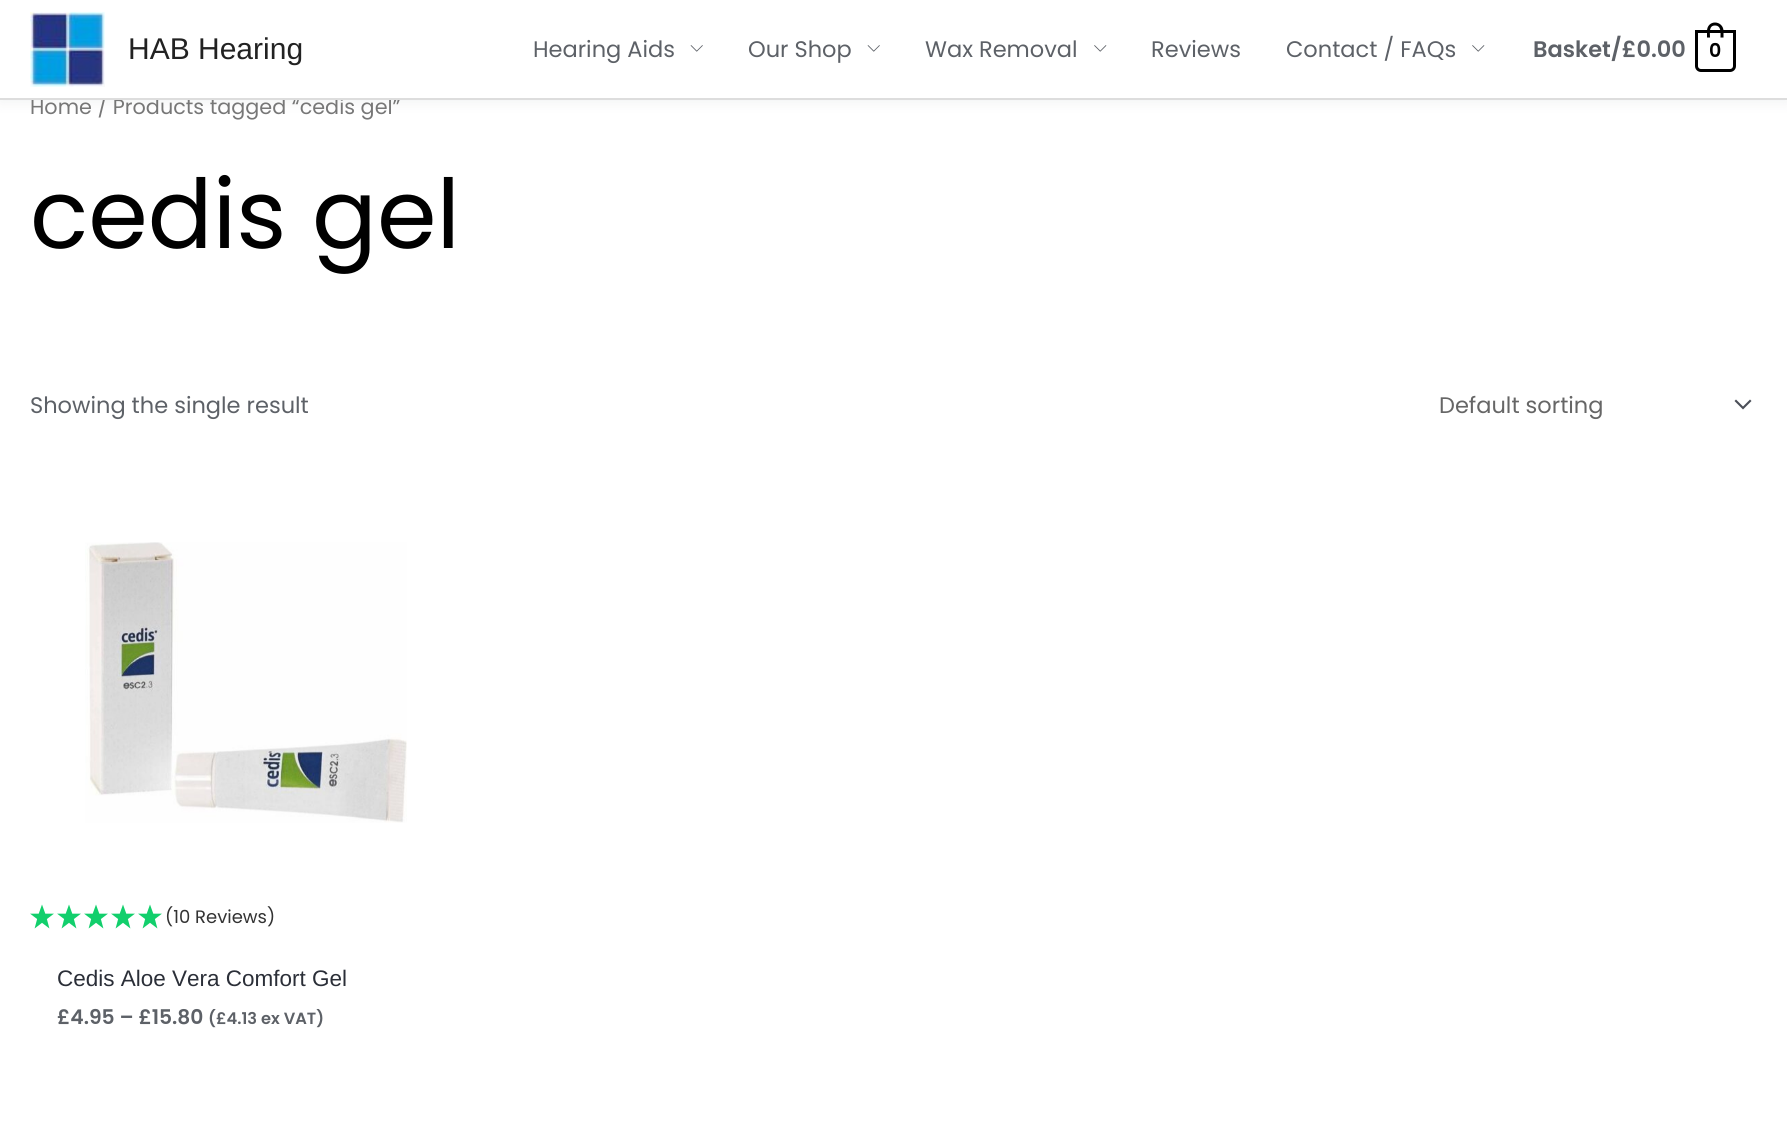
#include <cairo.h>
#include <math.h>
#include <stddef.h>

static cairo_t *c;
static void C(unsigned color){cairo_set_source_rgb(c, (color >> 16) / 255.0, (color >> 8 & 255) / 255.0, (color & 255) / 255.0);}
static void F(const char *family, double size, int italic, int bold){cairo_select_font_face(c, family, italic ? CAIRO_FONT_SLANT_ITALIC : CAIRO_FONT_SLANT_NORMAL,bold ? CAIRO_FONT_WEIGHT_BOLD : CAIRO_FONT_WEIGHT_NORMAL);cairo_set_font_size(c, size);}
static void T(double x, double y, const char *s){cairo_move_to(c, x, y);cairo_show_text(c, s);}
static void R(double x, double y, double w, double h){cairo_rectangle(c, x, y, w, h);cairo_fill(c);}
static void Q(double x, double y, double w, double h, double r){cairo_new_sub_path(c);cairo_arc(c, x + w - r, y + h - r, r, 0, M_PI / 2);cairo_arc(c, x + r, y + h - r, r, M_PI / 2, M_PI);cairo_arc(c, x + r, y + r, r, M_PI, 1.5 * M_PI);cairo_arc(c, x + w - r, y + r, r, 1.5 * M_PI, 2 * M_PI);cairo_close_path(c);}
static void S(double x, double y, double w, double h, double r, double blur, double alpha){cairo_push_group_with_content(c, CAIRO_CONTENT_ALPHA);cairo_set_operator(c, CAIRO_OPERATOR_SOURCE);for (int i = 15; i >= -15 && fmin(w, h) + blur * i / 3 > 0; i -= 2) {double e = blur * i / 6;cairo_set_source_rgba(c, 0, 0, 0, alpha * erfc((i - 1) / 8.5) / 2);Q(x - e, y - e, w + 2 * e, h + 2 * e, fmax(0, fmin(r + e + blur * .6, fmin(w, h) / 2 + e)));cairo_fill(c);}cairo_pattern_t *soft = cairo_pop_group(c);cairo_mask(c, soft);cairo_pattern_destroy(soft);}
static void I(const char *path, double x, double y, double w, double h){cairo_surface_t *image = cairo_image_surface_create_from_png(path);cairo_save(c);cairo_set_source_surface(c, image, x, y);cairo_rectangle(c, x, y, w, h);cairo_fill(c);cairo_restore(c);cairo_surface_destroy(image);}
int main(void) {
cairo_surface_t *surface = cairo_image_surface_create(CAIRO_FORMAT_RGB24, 1787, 1147);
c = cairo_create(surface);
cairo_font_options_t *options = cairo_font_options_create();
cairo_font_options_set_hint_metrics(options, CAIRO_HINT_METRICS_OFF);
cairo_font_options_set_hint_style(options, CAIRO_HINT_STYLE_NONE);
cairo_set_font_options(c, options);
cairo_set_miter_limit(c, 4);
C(0xffffff);
cairo_paint(c);
C(0x243242);
S(0,3,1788,99,0,7.5,.07);
F("Poppins",20.75,0,0);
C(0x777777);
T(30,114,"Home / Products tagged “cedis gel”");
C(0xffffff);
R(0,0,1787,98);
C(0xdddddd);
R(0,98,1787,2);
I("1.png",30,11,75,76);
F("Liberation Sans",30,0,0);
C(0x222222);
T(128,59,"HAB Hearing");
F("Poppins",22.5,0,0);
C(0x5d6167);
T(533,57,"Hearing Aids");
I("2.png",690,45,13,7);
T(748,57,"Our Shop");
I("2.png",867,45,13,7);
T(925,57,"Wax Removal");
I("3.png",1094,45,13,7);
T(1151,57,"Reviews");
T(1286,57,"Contact / FAQs");
I("3.png",1472,45,13,7);
F("Poppins SemiBold",22.5,0,0);
T(1533,57,"Basket/£0.00");
cairo_new_path(c);
cairo_move_to(c,1696.5,31.5);
cairo_line_to(c,1734.5,31.5);
cairo_line_to(c,1734.5,66);
cairo_curve_to(c,1734.5,68.5,1732.5,70.5,1730,70.5);
cairo_line_to(c,1701,70.5);
cairo_curve_to(c,1698.5,70.5,1696.5,68.5,1696.5,66);
cairo_close_path(c);
C(0x000000);
cairo_set_line_width(c,3);
cairo_stroke(c);
cairo_set_fill_rule(c,CAIRO_FILL_RULE_EVEN_ODD);
cairo_new_path(c);
cairo_move_to(c,1715,22.5);
cairo_curve_to(c,1719.5,22.5,1723.5,26,1723.5,31);
cairo_line_to(c,1723.5,37.5);
cairo_line_to(c,1707,37.5);
cairo_line_to(c,1707,31);
cairo_curve_to(c,1707,26,1710.5,22.5,1715,22.5);
cairo_close_path(c);
cairo_move_to(c,1715,25.5);
cairo_curve_to(c,1721.5,25.5,1720.5,33,1720.5,37.5);
cairo_line_to(c,1710,37.5);
cairo_curve_to(c,1710,33,1708.5,25.5,1715,25.5);
cairo_close_path(c);
cairo_fill(c);
F("Poppins SemiBold",19,0,0);
T(1709,57,"0");
F("Poppins",96,0,0);
T(30,248,"cedis gel");
F("Poppins",22.5,0,0);
C(0x5d6167);
T(30,413,"Showing the single result");
C(0x4b4f58);
cairo_set_fill_rule(c,CAIRO_FILL_RULE_WINDING);
cairo_new_path(c);
cairo_move_to(c,1734.5,401);
cairo_line_to(c,1743,409.5);
cairo_line_to(c,1751.5,401);
cairo_line_to(c,1750,399.5);
cairo_line_to(c,1743,406.5);
cairo_line_to(c,1736,399.5);
cairo_close_path(c);
cairo_fill(c);
C(0x666666);
T(1439,413,"Default sorting");
I("4.png",85,542,322,281);
I("5.png",30,904,24,25);
I("5.png",57,904,24,25);
I("5.png",84,904,24,25);
I("5.png",111,904,24,25);
I("5.png",138,904,24,25);
F("Poppins",18,0,0);
C(0x333333);
T(165,923,"(10 Reviews)");
F("Liberation Sans",22.5,0,0);
C(0x2b2f38);
T(57,986,"Cedis Aloe Vera Comfort Gel");
F("Poppins SemiBold",20.25,0,0);
C(0x5d6167);
T(57,1024,"£4.95 – £15.80");
F("Poppins SemiBold",16.25,0,0);
T(208,1024,"(£4.13 ex VAT)");
cairo_surface_write_to_png(surface, "o.png");
cairo_font_options_destroy(options);
cairo_destroy(c);
cairo_surface_destroy(surface);
return 0;
}
